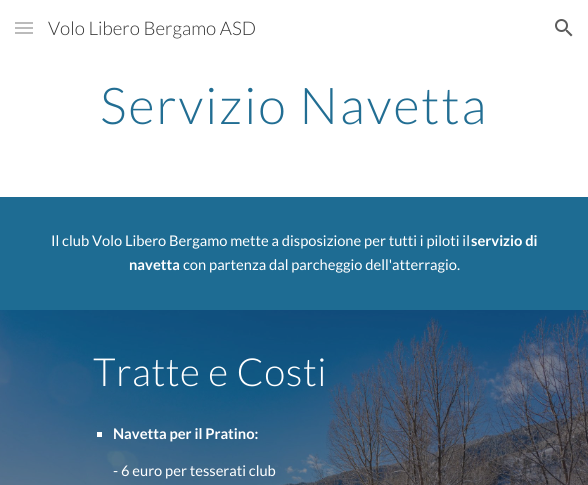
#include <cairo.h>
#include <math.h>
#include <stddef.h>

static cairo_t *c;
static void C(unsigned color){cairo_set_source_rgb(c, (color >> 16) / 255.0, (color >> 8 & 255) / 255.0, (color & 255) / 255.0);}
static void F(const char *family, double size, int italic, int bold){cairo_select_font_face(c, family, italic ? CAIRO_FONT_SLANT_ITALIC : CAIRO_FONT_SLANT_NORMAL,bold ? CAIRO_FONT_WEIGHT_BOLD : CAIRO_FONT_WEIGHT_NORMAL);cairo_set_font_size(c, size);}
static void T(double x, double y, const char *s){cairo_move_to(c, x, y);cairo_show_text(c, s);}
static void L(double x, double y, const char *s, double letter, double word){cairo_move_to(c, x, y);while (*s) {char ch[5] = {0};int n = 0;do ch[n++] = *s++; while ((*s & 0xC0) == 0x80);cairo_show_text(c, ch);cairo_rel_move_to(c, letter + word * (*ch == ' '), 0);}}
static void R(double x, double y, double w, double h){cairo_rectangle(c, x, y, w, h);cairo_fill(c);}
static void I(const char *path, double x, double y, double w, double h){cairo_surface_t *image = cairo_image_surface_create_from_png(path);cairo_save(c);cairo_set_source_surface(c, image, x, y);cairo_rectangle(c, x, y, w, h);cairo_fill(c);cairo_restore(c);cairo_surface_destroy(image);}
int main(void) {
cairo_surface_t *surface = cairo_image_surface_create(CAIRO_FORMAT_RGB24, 588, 485);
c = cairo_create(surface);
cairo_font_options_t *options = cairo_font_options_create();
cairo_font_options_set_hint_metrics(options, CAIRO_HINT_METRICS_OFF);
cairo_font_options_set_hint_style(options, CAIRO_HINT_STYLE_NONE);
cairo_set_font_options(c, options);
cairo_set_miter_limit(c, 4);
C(0xffffff);
cairo_paint(c);
C(0xbbbbbb);
R(15,22,18,2);
R(15,27,18,2);
R(15,32,18,2);
F("Lato Light",18.75,0,0);
C(0x333333);
T(48,35,"Volo Libero Bergamo ASD");
I("1.png",555,19,18,18);
F("Lato Light",50.75,0,0);
C(0x226e93);
L(100,124,"Servizio Navetta",2,0);
C(0x1e6c93);
R(0,197,588,113);
F("Lato",14.7,0,0);
C(0xffffff);
T(51,246,"Il club Volo Libero Bergamo mette a disposizione per tutti i piloti il");
F("Lato",14.7,0,1);
T(471,246,"servizio di");
T(129,270,"navetta");
F("Lato",14.7,0,0);
T(183,270,"con partenza dal parcheggio dell'atterragio.");
I("2.png",0,310,588,175);
F("Lato Light",38.75,0,0);
L(93,386,"Tratte e Costi",.5,0);
R(97,432,5,5);
F("Lato",14.7,0,1);
T(113,439,"Navetta per il Pratino:");
F("Lato",14.7,0,0);
T(113,476,"- 6 euro per tesserati club");
cairo_surface_write_to_png(surface, "o.png");
cairo_font_options_destroy(options);
cairo_destroy(c);
cairo_surface_destroy(surface);
return 0;
}
